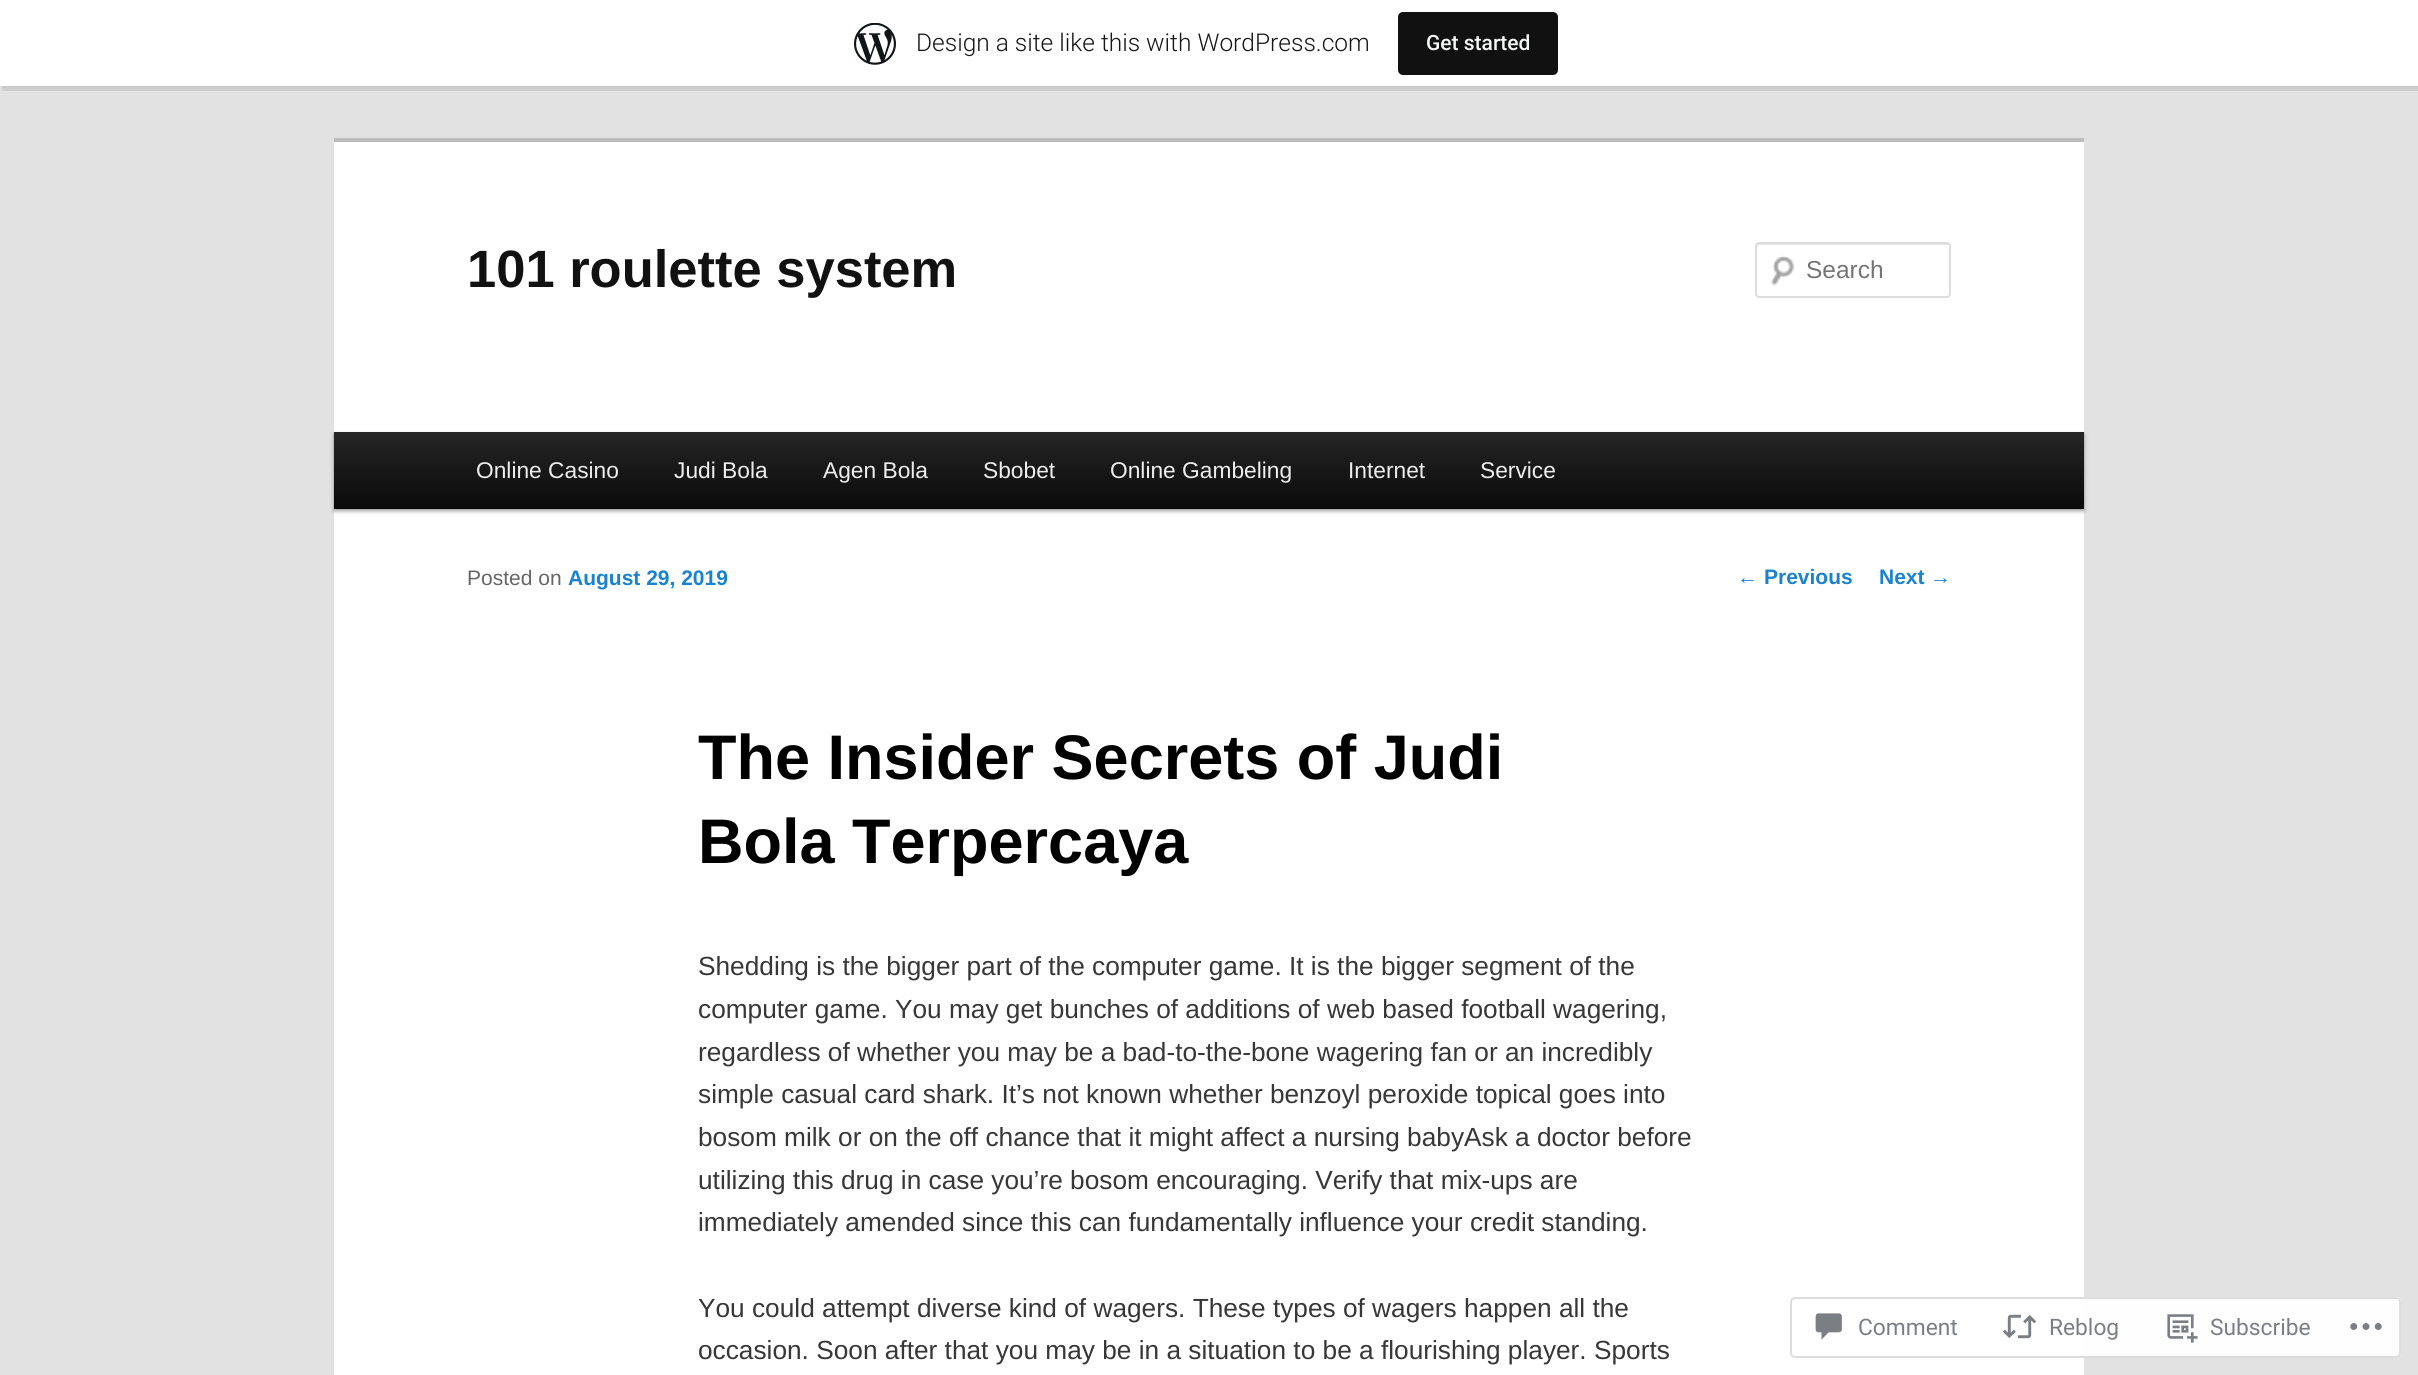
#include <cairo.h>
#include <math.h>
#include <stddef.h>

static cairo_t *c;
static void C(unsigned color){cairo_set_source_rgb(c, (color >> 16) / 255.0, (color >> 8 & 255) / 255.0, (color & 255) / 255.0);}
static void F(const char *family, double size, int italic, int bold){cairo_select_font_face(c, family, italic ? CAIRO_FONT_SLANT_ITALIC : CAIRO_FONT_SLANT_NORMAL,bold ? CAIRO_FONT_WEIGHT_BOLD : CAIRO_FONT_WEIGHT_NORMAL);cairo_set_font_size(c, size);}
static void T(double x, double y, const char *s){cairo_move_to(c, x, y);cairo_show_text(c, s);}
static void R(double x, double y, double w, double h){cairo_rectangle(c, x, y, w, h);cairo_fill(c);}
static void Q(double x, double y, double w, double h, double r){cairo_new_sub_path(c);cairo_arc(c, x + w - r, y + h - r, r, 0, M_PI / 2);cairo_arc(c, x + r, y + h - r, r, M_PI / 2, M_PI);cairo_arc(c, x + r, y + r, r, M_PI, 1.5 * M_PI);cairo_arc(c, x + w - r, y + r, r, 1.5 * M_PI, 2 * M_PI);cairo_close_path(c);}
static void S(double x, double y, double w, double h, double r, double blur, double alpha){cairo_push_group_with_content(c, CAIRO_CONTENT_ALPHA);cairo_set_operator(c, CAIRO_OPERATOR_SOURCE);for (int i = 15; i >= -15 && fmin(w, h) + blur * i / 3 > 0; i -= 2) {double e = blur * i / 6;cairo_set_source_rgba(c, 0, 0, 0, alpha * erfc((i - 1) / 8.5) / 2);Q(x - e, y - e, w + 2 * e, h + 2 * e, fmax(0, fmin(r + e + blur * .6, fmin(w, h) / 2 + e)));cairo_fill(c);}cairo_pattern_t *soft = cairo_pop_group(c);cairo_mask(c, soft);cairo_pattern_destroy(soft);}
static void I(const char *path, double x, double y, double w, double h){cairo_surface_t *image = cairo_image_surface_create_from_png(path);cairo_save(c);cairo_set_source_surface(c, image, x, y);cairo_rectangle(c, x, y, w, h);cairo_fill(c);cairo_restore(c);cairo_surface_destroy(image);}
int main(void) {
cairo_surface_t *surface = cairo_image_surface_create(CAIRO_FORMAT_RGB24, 2418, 1375);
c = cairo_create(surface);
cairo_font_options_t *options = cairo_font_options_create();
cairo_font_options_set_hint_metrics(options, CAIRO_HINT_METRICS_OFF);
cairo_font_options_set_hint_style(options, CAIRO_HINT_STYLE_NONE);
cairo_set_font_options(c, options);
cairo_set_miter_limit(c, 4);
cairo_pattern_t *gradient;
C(0xe2e2e2);
cairo_paint(c);
C(0x000000);
S(0,2,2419,86,0,2,.05);
cairo_set_source_rgba(c,0,0,0,0.08);
cairo_new_path(c);
cairo_move_to(c,2,86);
cairo_line_to(c,2,91);
cairo_line_to(c,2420,91);
cairo_line_to(c,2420,5);
cairo_line_to(c,2418,5);
cairo_line_to(c,2418,86);
cairo_close_path(c);
cairo_fill(c);
C(0xffffff);
R(0,0,2418,86);
I("1.png",854,23,42,42);
F("Roboto Light",24.5,0,0);
C(0x171717);
T(916,51,"Design a site like this with WordPress.com");
C(0x111111);
Q(1398,12,160,63,5);
cairo_fill(c);
F("Roboto Medium",21,0,0);
C(0xf6f7f7);
T(1426,50,"Get started");
C(0xffffff);
R(334,142,1750,1233);
C(0xbbbbbb);
R(334,138,1750,4);
F("Liberation Sans",52.5,0,1);
C(0x111111);
T(467,287,"101 roulette system");
I("2.png",1770,255,25,31);
C(0xe6e6e6);
cairo_new_path(c);
cairo_move_to(c,1759,245);
cairo_line_to(c,1948,245);
cairo_line_to(c,1950,246);
cairo_line_to(c,1950,247);
cairo_curve_to(c,1950,245,1950,243,1948,243);
cairo_line_to(c,1759,243);
cairo_curve_to(c,1757,243,1757,245,1757,247);
cairo_curve_to(c,1757,246,1758,245,1759,245);
cairo_close_path(c);
cairo_fill(c);
Q(1756,243,194,54,3);
C(0xdddddd);
cairo_stroke(c);
F("Liberation Sans",24.5,0,0);
C(0x757575);
T(1806,278,"Search");
C(0x000000);
S(334,434,1750,77,0,2,.4);
gradient = cairo_pattern_create_linear(1209,432,1209,509);
cairo_pattern_add_color_stop_rgba(gradient,0,0.145,0.145,0.145,1);
cairo_pattern_add_color_stop_rgba(gradient,1,0.039,0.039,0.039,1);
cairo_set_source(c,gradient);
cairo_pattern_destroy(gradient);
R(334,432,1750,77);
F("Liberation Sans",22.75,0,0);
C(0xeeeeee);
T(476,478,"Online Casino");
T(674,478,"Judi Bola");
T(823,478,"Agen Bola");
T(983,478,"Sbobet");
T(1110,478,"Online Gambeling");
T(1348,478,"Internet");
T(1480,478,"Service");
F("Liberation Sans",21,0,0);
C(0x666666);
T(467,585,"Posted on");
F("Liberation Sans",21,0,1);
C(0x1982d1);
T(568,585,"August 29, 2019");
F("Liberation Sans",63,0,1);
C(0x000000);
T(698,779,"The Insider Secrets of Judi");
T(698,863,"Bola Terpercaya");
F("Liberation Sans",26.25,0,0);
C(0x373737);
T(698,975,"Shedding is the bigger part of the computer game. It is the bigger segment of the");
T(698,1018,"computer game. You may get bunches of additions of web based football wagering,");
T(698,1061,"regardless of whether you may be a bad-to-the-bone wagering fan or an incredibly");
T(698,1103,"simple casual card shark. It’s not known whether benzoyl peroxide topical goes into");
T(698,1146,"bosom milk or on the off chance that it might affect a nursing babyAsk a doctor before");
T(698,1189,"utilizing this drug in case you’re bosom encouraging. Verify that mix-ups are");
T(698,1231,"immediately amended since this can fundamentally influence your credit standing.");
T(698,1317,"You could attempt diverse kind of wagers. These types of wagers happen all the");
T(698,1359,"occasion. Soon after that you may be in a situation to be a flourishing player. Sports");
F("Liberation Sans",21,0,0);
C(0x1982d1);
T(1737,584,"←");
F("Liberation Sans",21,0,1);
T(1764,584,"Previous");
T(1879,584,"Next");
F("Liberation Sans",21,0,0);
T(1930,584,"→");
cairo_set_source_rgba(c,1,1,1,0.98);
Q(1790,1297,611,61,5);
cairo_fill(c);
Q(1791,1298,609,59,4);
cairo_set_source_rgba(c,0.863,0.863,0.871,0.98);
cairo_stroke(c);
I("3.png",1815,1313,27,27);
F("Roboto",22.75,0,0);
C(0x7b7f85);
T(1858,1335,"Comment");
I("4.png",2002,1314,35,25);
T(2049,1335,"Reblog");
I("5.png",2167,1314,31,29);
T(2210,1335,"Subscribe");
I("6.png",2350,1323,32,7);
cairo_surface_write_to_png(surface, "o.png");
cairo_font_options_destroy(options);
cairo_destroy(c);
cairo_surface_destroy(surface);
return 0;
}
